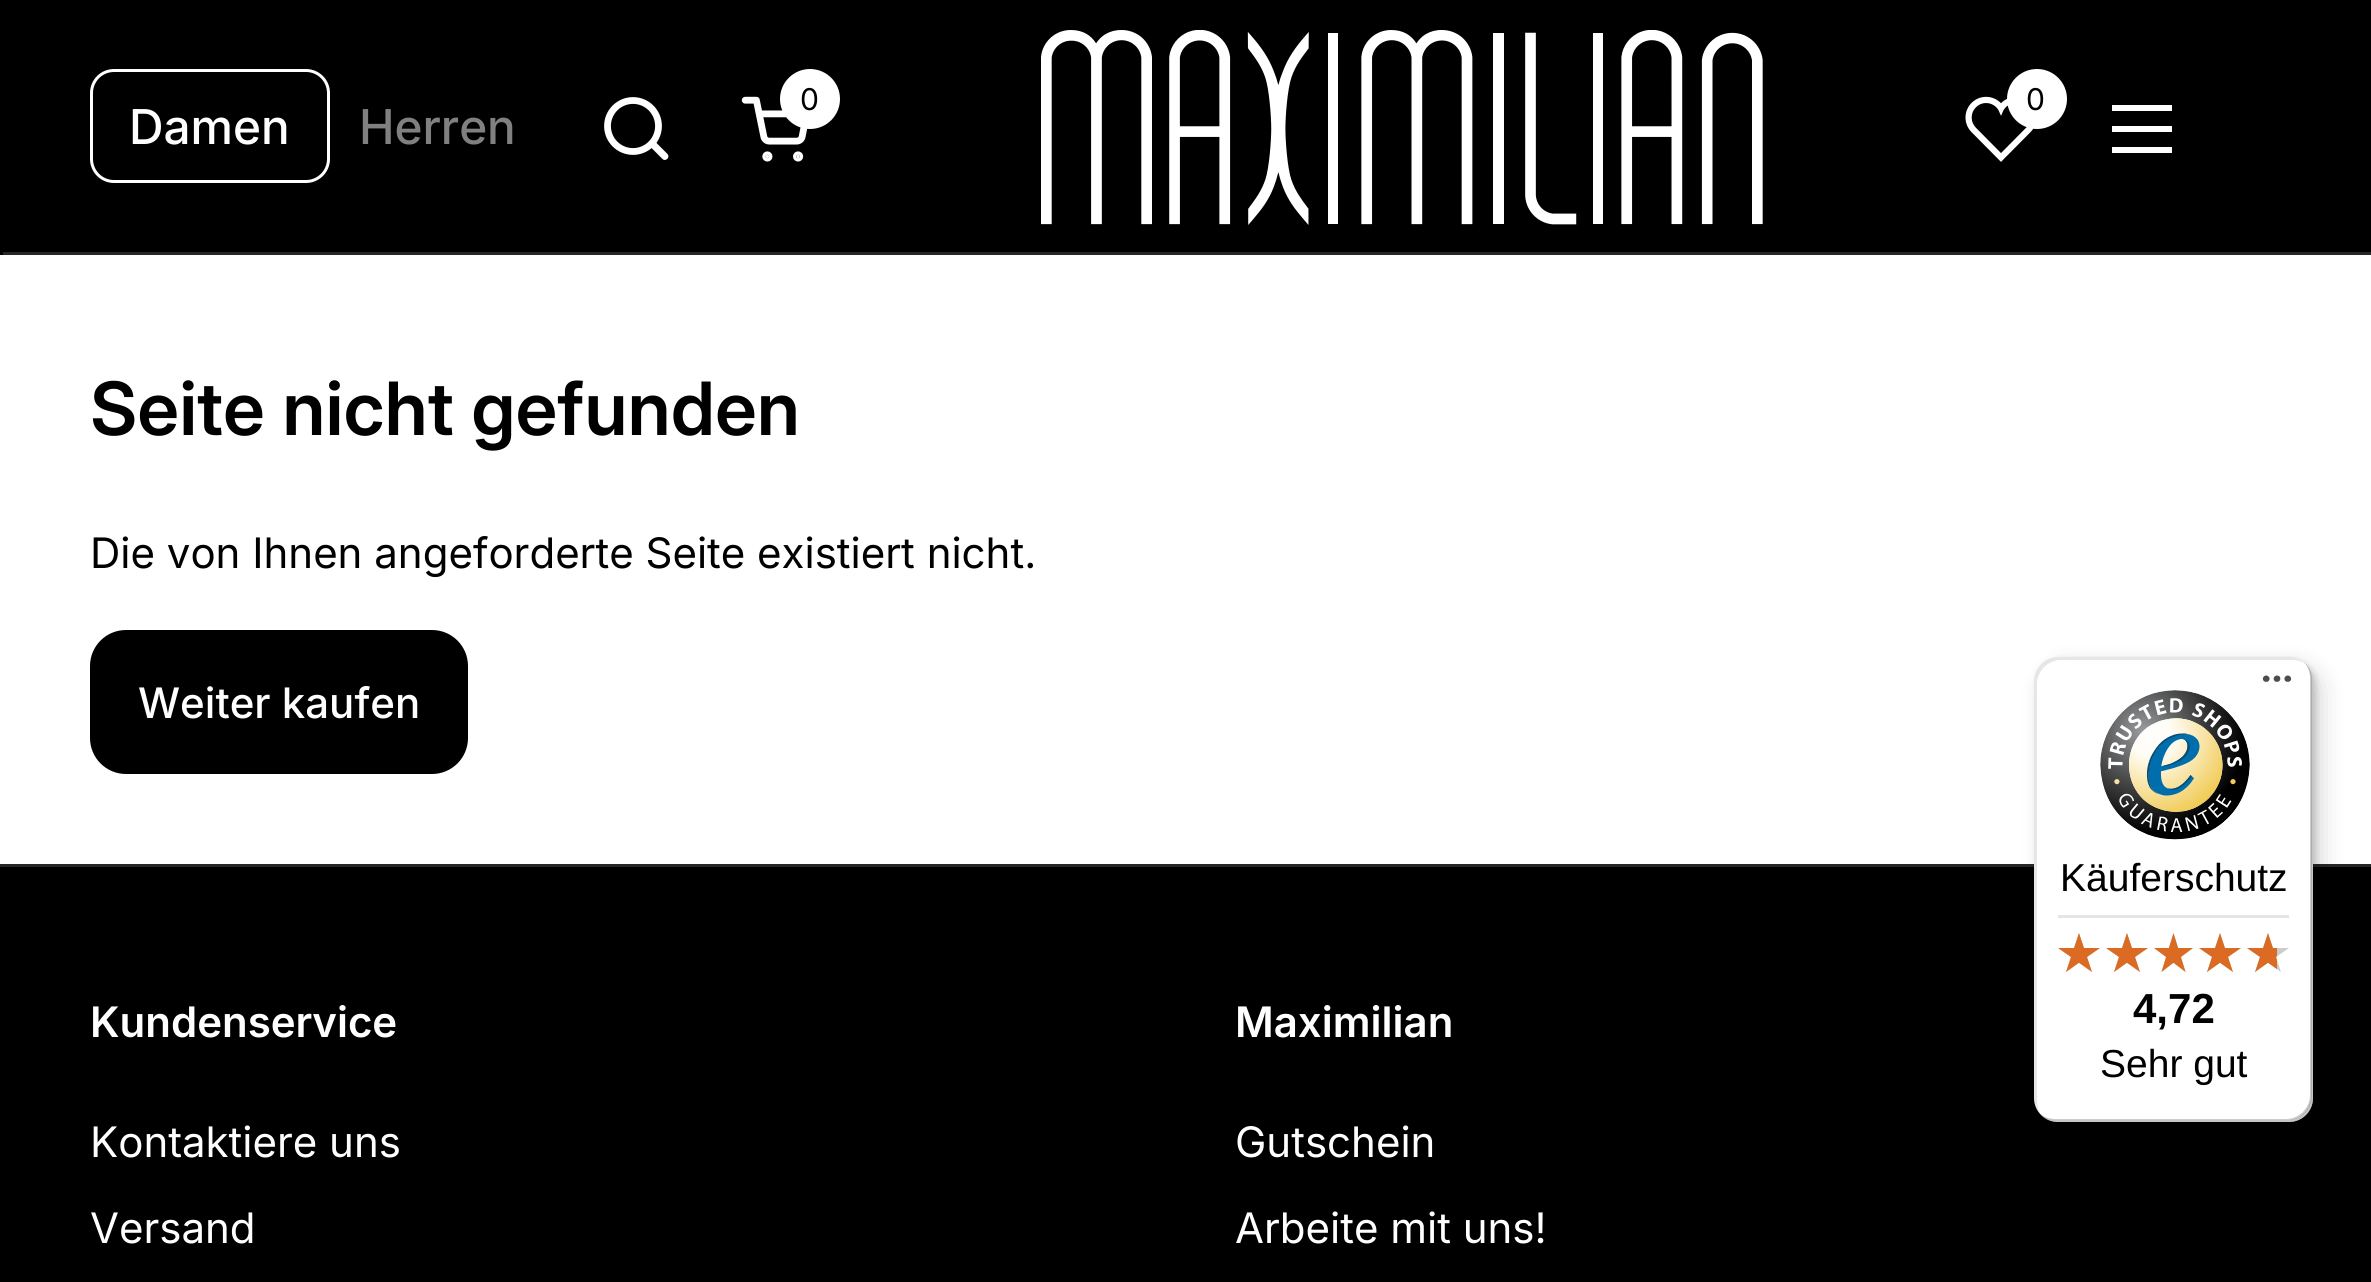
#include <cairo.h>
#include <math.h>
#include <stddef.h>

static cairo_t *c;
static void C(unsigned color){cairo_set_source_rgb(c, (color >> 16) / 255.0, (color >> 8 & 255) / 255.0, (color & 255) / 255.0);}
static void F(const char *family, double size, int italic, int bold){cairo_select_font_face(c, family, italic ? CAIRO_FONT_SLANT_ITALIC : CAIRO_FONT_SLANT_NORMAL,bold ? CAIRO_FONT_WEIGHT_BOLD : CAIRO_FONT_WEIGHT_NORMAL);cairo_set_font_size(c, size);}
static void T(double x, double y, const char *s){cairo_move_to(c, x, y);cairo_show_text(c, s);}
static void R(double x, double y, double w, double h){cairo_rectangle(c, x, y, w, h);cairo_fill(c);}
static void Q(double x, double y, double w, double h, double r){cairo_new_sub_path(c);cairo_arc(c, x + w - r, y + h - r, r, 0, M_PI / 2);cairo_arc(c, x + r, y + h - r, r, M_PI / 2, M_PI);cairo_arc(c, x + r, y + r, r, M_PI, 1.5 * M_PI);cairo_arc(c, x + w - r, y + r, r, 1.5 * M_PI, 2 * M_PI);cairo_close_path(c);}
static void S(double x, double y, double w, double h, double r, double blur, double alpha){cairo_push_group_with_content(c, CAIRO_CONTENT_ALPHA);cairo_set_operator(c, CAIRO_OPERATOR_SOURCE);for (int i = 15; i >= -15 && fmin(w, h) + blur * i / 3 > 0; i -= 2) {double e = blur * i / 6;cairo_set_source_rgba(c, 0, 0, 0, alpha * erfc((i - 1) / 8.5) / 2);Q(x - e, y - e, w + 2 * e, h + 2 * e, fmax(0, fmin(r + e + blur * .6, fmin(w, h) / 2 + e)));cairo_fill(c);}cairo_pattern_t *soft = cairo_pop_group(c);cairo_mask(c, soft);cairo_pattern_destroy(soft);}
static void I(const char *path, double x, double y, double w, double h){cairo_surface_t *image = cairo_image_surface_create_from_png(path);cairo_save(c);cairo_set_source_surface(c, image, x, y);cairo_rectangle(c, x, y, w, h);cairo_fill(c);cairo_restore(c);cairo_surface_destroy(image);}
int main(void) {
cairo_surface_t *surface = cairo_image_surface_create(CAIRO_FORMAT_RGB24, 2371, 1282);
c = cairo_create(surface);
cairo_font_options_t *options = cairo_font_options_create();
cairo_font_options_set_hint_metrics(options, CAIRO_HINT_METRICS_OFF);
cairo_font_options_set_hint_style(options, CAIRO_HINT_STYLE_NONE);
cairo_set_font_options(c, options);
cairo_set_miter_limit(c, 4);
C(0xffffff);
cairo_paint(c);
C(0x000000);
R(0,0,2371,255);
Q(91.5,70.5,237,111,22.5);
C(0xffffff);
cairo_set_line_width(c,3);
cairo_stroke(c);
F("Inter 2 Medium",48,0,0);
T(129,144,"Damen");
C(0x808080);
T(359,144,"Herren");
cairo_new_path(c);
cairo_arc(c,633,126,25.5,0,2 * M_PI);
C(0xffffff);
cairo_set_line_width(c,6.8);
cairo_stroke(c);
cairo_new_path(c);
cairo_move_to(c,655.5,142);
cairo_line_to(c,653,139.5);
cairo_line_to(c,648,144.5);
cairo_line_to(c,650.5,147);
cairo_close_path(c);
cairo_move_to(c,662.5,159);
cairo_curve_to(c,665.5,162,670.5,157.5,667.5,154);
cairo_close_path(c);
cairo_move_to(c,650.5,147);
cairo_line_to(c,662.5,159);
cairo_line_to(c,667.5,154);
cairo_line_to(c,655.5,142);
cairo_close_path(c);
cairo_fill(c);
cairo_arc(c,810,99,30,0,2 * M_PI);
cairo_fill(c);
F("Inter",30,0,0);
C(0x000000);
T(800,110,"0");
I("1.png",741,96,67,66);
I("2.png",1041,30,722,195);
I("3.png",1965,96,69,66);
C(0xffffff);
cairo_arc(c,2037,99,30,0,2 * M_PI);
cairo_fill(c);
C(0x000000);
T(2026,110,"0");
C(0xffffff);
R(2112,105,60,6);
R(2112,126,60,6);
R(2112,147,60,6);
C(0x262626);
R(3,252,2368,3);
F("Inter SemiBold",73.5,0,0);
C(0x000000);
T(90,435,"Seite nicht gefunden");
F("Inter",42,0,0);
T(90,568,"Die von Ihnen angeforderte Seite existiert nicht.");
Q(91.5,631.5,375,141,34.5);
cairo_fill_preserve(c);
cairo_set_line_width(c,3);
cairo_stroke(c);
F("Inter Medium",42,0,0);
C(0xffffff);
T(138,718,"Weiter kaufen");
C(0x000000);
R(0,867,2371,415);
C(0x262626);
R(0,864,2371,3);
C(0x000000);
S(2043,666,279,465,24,12,.15);
S(2037,660,279,465,24,3,.15);
C(0xffffff);
Q(2034,657,279,465,24);
cairo_fill(c);
cairo_set_source_rgba(c,0,0,0,0.1);
cairo_new_path(c);
cairo_move_to(c,2061,660);
cairo_line_to(c,2292,660);
cairo_curve_to(c,2298,660,2304,662,2308,666);
cairo_curve_to(c,2303,661,2297,657,2289,657);
cairo_line_to(c,2058,657);
cairo_curve_to(c,2045,657,2034,668,2034,681);
cairo_line_to(c,2034,1098);
cairo_curve_to(c,2034,1106,2038,1112,2043,1117);
cairo_curve_to(c,2039,1113,2037,1107,2037,1101);
cairo_line_to(c,2037,684);
cairo_curve_to(c,2037,671,2048,660,2061,660);
cairo_close_path(c);
cairo_fill(c);
cairo_set_source_rgba(c,0,0,0,0.2);
cairo_new_path(c);
cairo_move_to(c,2039,1113);
cairo_curve_to(c,2044,1118,2050,1122,2058,1122);
cairo_line_to(c,2289,1122);
cairo_curve_to(c,2302,1122,2313,1111,2313,1098);
cairo_line_to(c,2313,681);
cairo_curve_to(c,2313,673,2309,667,2304,662);
cairo_curve_to(c,2308,666,2310,672,2310,678);
cairo_line_to(c,2310,1095);
cairo_curve_to(c,2310,1108,2299,1119,2286,1119);
cairo_line_to(c,2055,1119);
cairo_curve_to(c,2049,1119,2043,1117,2039,1113);
cairo_close_path(c);
cairo_fill(c);
cairo_set_source_rgba(c,0.196,0.196,0.196,0.2);
cairo_new_path(c);
cairo_move_to(c,2039,1113);
cairo_curve_to(c,2044,1119,2050,1122,2058,1122);
cairo_line_to(c,2289,1122);
cairo_curve_to(c,2302,1122,2313,1111,2313,1098);
cairo_line_to(c,2313,681);
cairo_curve_to(c,2313,673,2310,667,2304,662);
cairo_curve_to(c,2308,667,2311,673,2311,679);
cairo_line_to(c,2311,1096);
cairo_curve_to(c,2311,1109,2300,1120,2287,1120);
cairo_line_to(c,2056,1120);
cairo_curve_to(c,2050,1120,2044,1117,2039,1113);
cairo_close_path(c);
cairo_fill(c);
cairo_set_source_rgba(c,1,1,1,0.3);
cairo_new_path(c);
cairo_move_to(c,2041,1115);
cairo_curve_to(c,2045,1119,2051,1122,2058,1122);
cairo_line_to(c,2289,1122);
cairo_curve_to(c,2302,1122,2313,1111,2313,1098);
cairo_line_to(c,2313,681);
cairo_curve_to(c,2313,675,2311,669,2307,665);
cairo_curve_to(c,2310,669,2312,674,2312,680);
cairo_line_to(c,2312,1096);
cairo_curve_to(c,2312,1110,2301,1120,2288,1120);
cairo_line_to(c,2056,1120);
cairo_curve_to(c,2050,1120,2045,1118,2041,1115);
cairo_close_path(c);
cairo_fill(c);
I("4.png",2262,675,30,7);
I("5.png",2100,690,150,150);
F("Liberation Sans",39,0,0);
C(0x000000);
T(2060,891,"Käuferschutz");
C(0xe5e5e5);
R(2058,915,231,3);
I("6.png",2058,933,42,39);
I("6.png",2106,933,42,39);
I("7.png",2154,933,39,39);
I("6.png",2199,933,42,39);
I("6.png",2247,933,42,39);
I("8.png",2058,933,42,39);
I("8.png",2106,933,42,39);
I("9.png",2154,933,39,39);
I("8.png",2199,933,42,39);
I("10.png",2247,933,30,39);
F("Liberation Sans",42,0,1);
C(0x000000);
T(2133,1023,"4,72");
F("Liberation Sans",39,0,0);
T(2100,1077,"Sehr gut");
F("Inter 2 SemiBold",42,0,0);
C(0xffffff);
T(90,1037,"Kundenservice");
F("Inter",42,0,0);
T(90,1157,"Kontaktiere uns");
T(90,1243,"Versand");
F("Inter 2 SemiBold",42,0,0);
T(1235,1037,"Maximilian");
F("Inter",42,0,0);
T(1235,1157,"Gutschein");
T(1235,1243,"Arbeite mit uns!");
cairo_surface_write_to_png(surface, "o.png");
cairo_font_options_destroy(options);
cairo_destroy(c);
cairo_surface_destroy(surface);
return 0;
}
